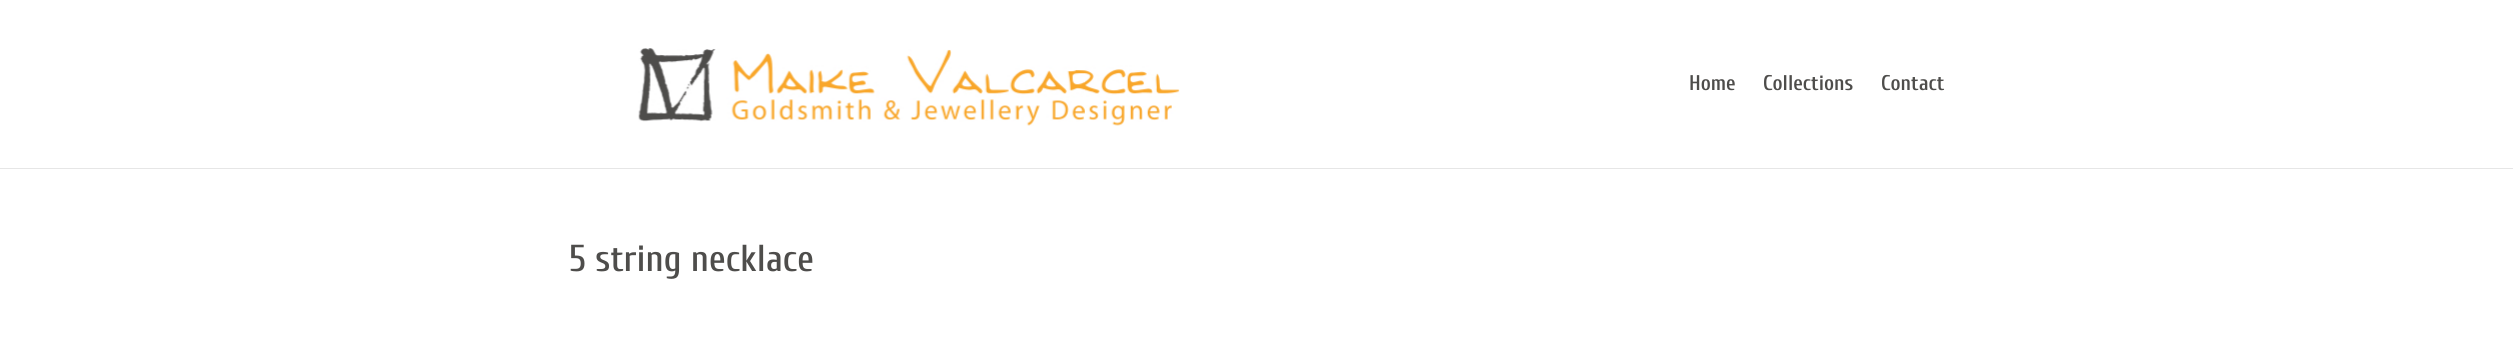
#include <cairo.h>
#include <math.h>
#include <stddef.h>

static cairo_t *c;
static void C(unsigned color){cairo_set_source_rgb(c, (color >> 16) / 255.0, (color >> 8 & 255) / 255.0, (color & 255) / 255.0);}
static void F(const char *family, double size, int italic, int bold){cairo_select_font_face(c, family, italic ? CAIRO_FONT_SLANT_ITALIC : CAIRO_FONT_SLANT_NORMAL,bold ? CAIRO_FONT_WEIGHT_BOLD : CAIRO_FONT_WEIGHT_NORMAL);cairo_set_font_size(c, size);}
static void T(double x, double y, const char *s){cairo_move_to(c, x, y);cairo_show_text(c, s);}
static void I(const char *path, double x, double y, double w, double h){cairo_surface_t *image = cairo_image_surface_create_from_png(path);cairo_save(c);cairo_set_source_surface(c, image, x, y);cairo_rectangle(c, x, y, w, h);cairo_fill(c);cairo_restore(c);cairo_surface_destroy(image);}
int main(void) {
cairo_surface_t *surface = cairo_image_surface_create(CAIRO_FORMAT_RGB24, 2513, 349);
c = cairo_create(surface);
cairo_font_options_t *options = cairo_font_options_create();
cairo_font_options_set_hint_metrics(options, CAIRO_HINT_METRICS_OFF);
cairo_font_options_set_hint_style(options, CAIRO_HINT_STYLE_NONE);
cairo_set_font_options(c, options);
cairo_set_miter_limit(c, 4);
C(0xffffff);
cairo_paint(c);
C(0xe6e6e6);
cairo_new_path(c);
cairo_move_to(c,0,168);
cairo_line_to(c,0,169);
cairo_line_to(c,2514,169);
cairo_line_to(c,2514,1);
cairo_line_to(c,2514,168);
cairo_close_path(c);
cairo_fill(c);
I("1.png",638,48,542,78);
F("Cuprum SemiBold",21.25,0,0);
C(0x4e4d4b);
T(1689,90,"Home");
T(1763,90,"Collections");
T(1881,90,"Contact");
F("Cuprum Medium",37.5,0,0);
T(569,271,"5 string necklace");
cairo_surface_write_to_png(surface, "o.png");
cairo_font_options_destroy(options);
cairo_destroy(c);
cairo_surface_destroy(surface);
return 0;
}
